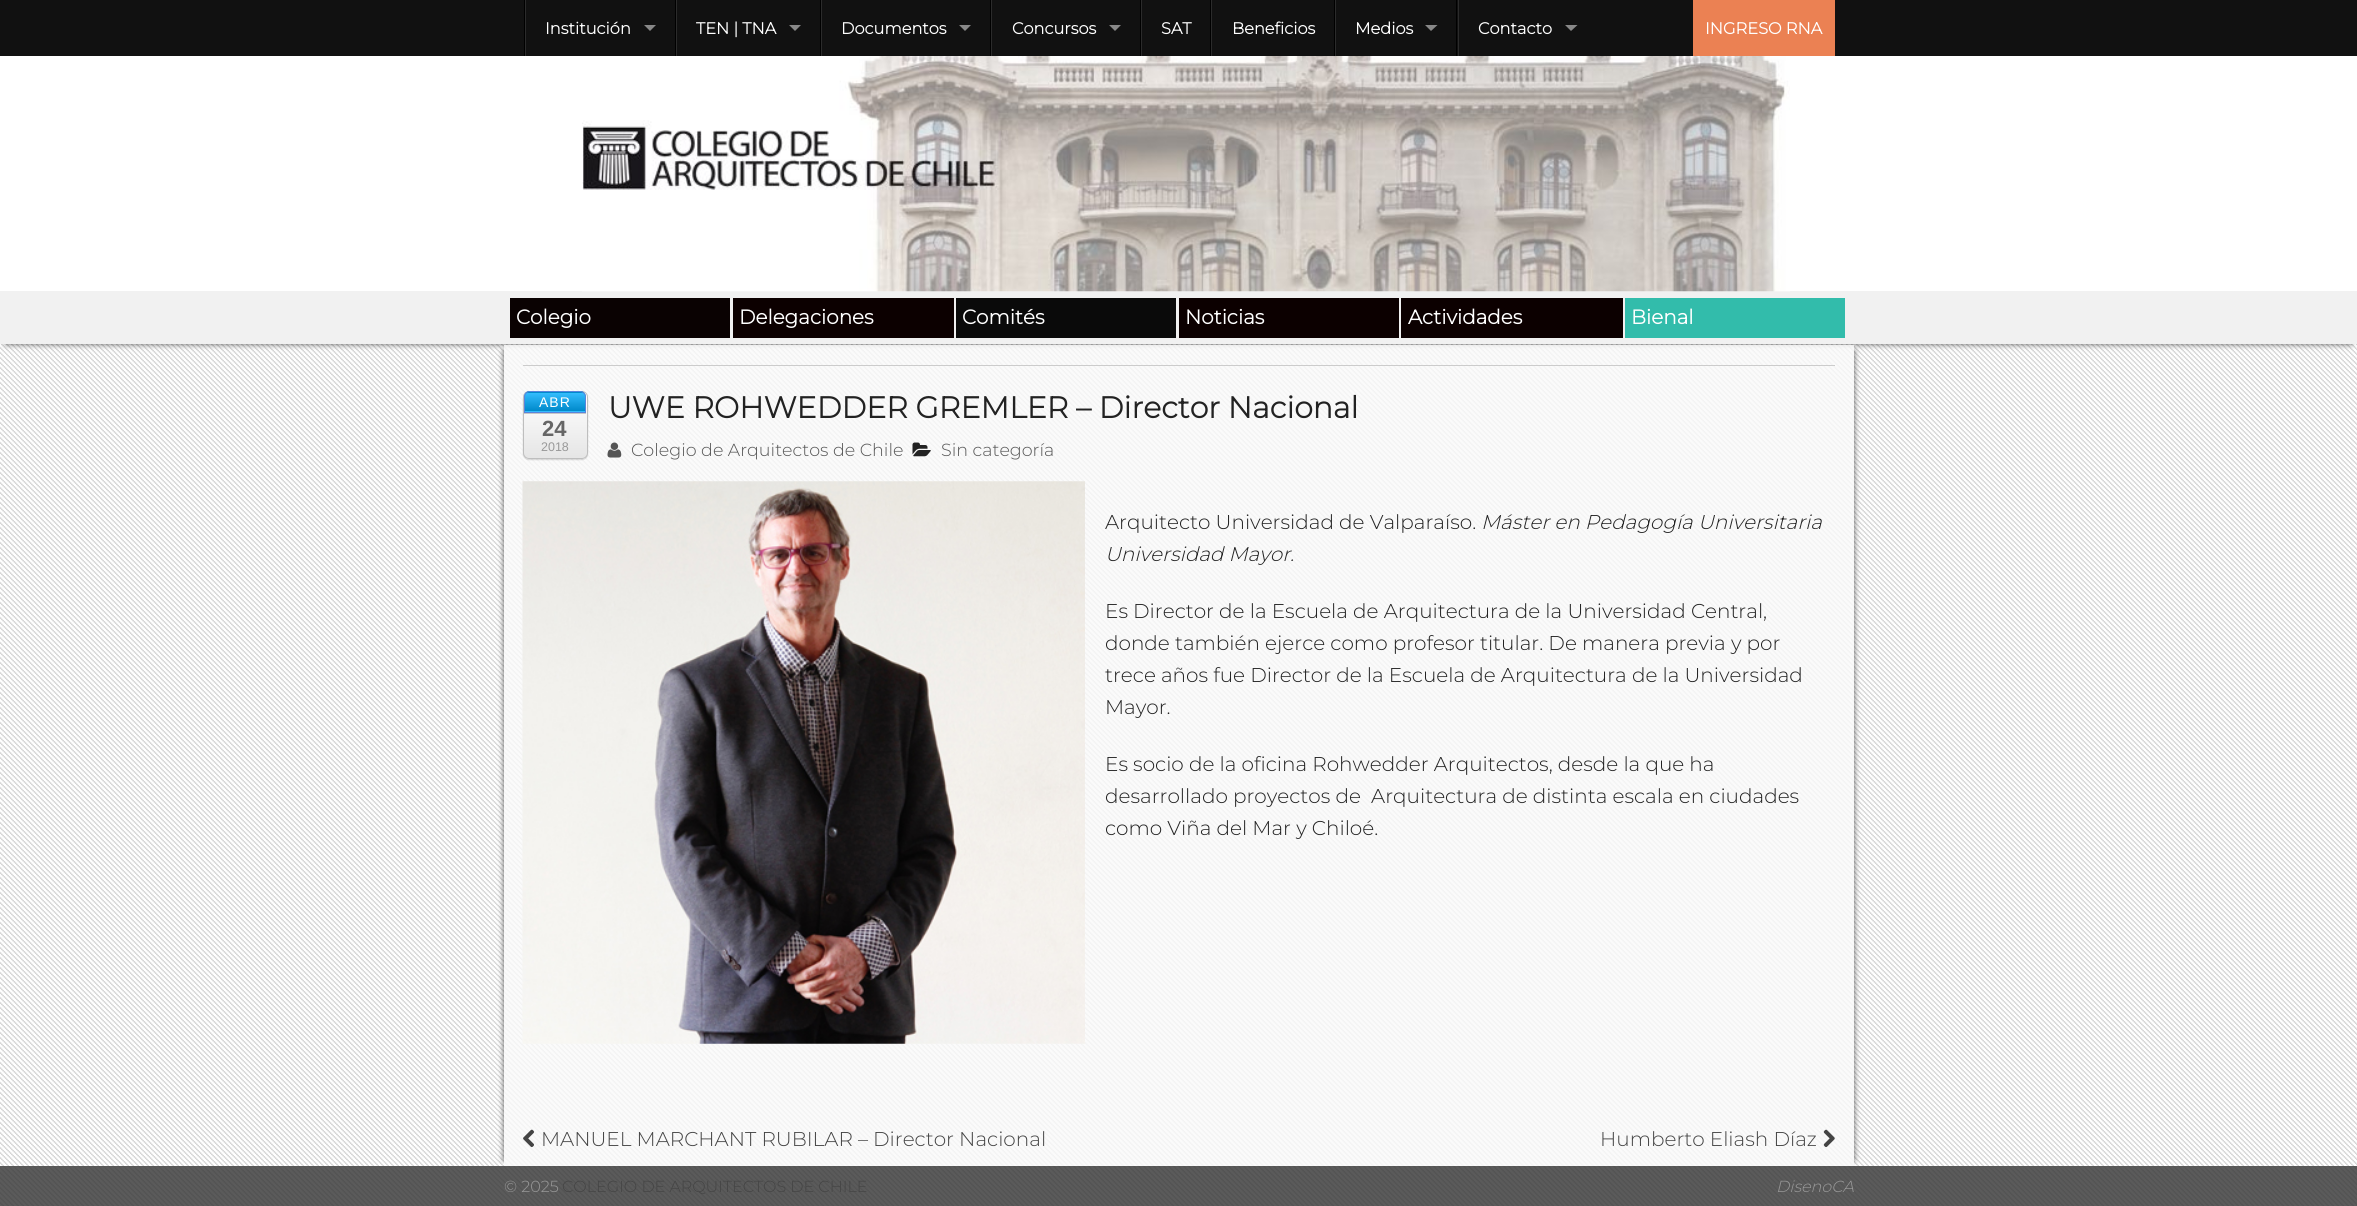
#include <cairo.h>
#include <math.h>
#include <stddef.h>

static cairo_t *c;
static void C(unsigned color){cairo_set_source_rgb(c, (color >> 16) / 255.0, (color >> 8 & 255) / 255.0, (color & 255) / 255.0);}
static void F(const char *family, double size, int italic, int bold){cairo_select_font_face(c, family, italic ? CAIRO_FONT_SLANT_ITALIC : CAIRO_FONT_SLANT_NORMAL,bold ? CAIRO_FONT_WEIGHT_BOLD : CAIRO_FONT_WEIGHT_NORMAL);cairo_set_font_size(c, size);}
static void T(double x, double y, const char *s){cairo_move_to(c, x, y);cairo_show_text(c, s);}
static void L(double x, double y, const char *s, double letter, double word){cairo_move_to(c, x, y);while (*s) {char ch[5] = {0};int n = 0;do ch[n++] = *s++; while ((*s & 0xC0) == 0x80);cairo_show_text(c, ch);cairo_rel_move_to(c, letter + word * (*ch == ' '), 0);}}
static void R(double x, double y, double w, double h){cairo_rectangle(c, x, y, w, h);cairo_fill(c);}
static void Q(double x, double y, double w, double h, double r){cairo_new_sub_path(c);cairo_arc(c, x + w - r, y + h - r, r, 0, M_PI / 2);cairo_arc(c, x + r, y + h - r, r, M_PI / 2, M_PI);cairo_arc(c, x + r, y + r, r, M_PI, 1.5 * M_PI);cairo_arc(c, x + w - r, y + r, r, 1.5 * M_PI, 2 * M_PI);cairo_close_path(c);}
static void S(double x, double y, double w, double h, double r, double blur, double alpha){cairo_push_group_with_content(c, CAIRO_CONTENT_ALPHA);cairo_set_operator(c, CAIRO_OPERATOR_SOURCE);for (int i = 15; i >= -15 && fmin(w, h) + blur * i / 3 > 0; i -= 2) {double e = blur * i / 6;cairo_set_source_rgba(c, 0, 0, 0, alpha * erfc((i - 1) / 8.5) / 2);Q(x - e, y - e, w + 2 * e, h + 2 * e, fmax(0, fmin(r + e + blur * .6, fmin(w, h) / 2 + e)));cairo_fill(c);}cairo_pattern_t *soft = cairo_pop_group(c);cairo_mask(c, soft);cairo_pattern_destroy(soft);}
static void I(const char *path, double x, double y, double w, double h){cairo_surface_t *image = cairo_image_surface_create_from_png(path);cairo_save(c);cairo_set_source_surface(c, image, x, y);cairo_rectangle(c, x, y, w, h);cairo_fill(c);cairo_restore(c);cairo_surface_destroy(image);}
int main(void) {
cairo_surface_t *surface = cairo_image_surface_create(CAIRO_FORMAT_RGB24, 2357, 1206);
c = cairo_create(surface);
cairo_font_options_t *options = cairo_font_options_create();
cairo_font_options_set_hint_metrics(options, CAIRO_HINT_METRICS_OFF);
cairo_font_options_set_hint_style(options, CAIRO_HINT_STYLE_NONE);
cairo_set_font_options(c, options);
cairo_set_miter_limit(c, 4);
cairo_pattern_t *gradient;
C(0xffffff);
cairo_paint(c);
I("1.png",0,344,2357,862);
C(0x111111);
R(0,0,2357,56);
C(0x2b2b2b);
R(525,0,1,56);
C(0x000000);
R(524,0,1,56);
F("Montserrat",16.25,0,1);
C(0xffffff);
T(545,34,"Institución");
C(0x888888);
cairo_new_path(c);
cairo_move_to(c,644,25);
cairo_line_to(c,656,25);
cairo_line_to(c,650,31);
cairo_close_path(c);
cairo_fill(c);
C(0x2b2b2b);
R(676,0,1,56);
C(0x000000);
R(675,0,1,56);
C(0xffffff);
T(696,34,"TEN | TNA");
C(0x888888);
cairo_new_path(c);
cairo_move_to(c,789,25);
cairo_line_to(c,801,25);
cairo_line_to(c,795,31);
cairo_close_path(c);
cairo_fill(c);
C(0x2b2b2b);
R(821,0,1,56);
C(0x000000);
R(820,0,1,56);
C(0xffffff);
T(841,34,"Documentos");
C(0x888888);
cairo_new_path(c);
cairo_move_to(c,959,25);
cairo_line_to(c,971,25);
cairo_line_to(c,965,31);
cairo_close_path(c);
cairo_fill(c);
C(0x2b2b2b);
R(991,0,1,56);
C(0x000000);
R(990,0,1,56);
C(0xffffff);
T(1012,34,"Concursos");
C(0x888888);
cairo_new_path(c);
cairo_move_to(c,1109,25);
cairo_line_to(c,1121,25);
cairo_line_to(c,1115,31);
cairo_close_path(c);
cairo_fill(c);
C(0x2b2b2b);
R(1141,0,1,56);
C(0x000000);
R(1140,0,1,56);
C(0xffffff);
T(1161,34,"SAT");
C(0x2b2b2b);
R(1211,0,1,56);
C(0x000000);
R(1210,0,1,56);
C(0xffffff);
T(1232,34,"Beneficios");
C(0x2b2b2b);
R(1335,0,1,56);
C(0x000000);
R(1334,0,1,56);
C(0xffffff);
T(1355,34,"Medios");
C(0x888888);
cairo_new_path(c);
cairo_move_to(c,1425,25);
cairo_line_to(c,1437.5,25);
cairo_line_to(c,1431,31);
cairo_close_path(c);
cairo_fill(c);
C(0x2b2b2b);
R(1458,0,1,56);
C(0x000000);
R(1456,0,1,56);
C(0xffffff);
T(1478,34,"Contacto");
C(0x888888);
cairo_new_path(c);
cairo_move_to(c,1565,25);
cairo_line_to(c,1577.5,25);
cairo_line_to(c,1571,31);
cairo_close_path(c);
cairo_fill(c);
C(0xeb8153);
R(1693,0,142,56);
C(0xffffff);
T(1705,34,"INGRESO RNA");
C(0x000000);
S(6,304,2345,40,0,3,.65);
C(0xf1f1f1);
R(0,291,2357,53);
I("2.png",582,56,1208,236);
C(0x0a0202);
R(510,298,220,40);
F("Montserrat",20,0,1);
C(0xffffff);
T(516,324,"Colegio");
C(0x0c0000);
R(733,298,221,40);
C(0xffffff);
T(739,324,"Delegaciones");
C(0x0a0a0a);
R(956,298,220,40);
C(0xffffff);
T(962,324,"Comités");
C(0x0c0000);
R(1179,298,220,40);
C(0xffffff);
T(1185,324,"Noticias");
C(0x0c0000);
R(1401,298,222,40);
C(0xffffff);
T(1408,324,"Actividades");
C(0x32bcab);
R(1625,298,220,40);
C(0xffffff);
T(1631,324,"Bienal");
cairo_save(c);
cairo_rectangle(c,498,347,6,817);
cairo_clip(c);
C(0x000000);
S(504,351,1337,809,0,3,.65);
cairo_restore(c);
cairo_save(c);
cairo_set_fill_rule(c,CAIRO_FILL_RULE_EVEN_ODD);
cairo_new_path(c);
cairo_move_to(c,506,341);
cairo_line_to(c,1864,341);
cairo_line_to(c,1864,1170);
cairo_line_to(c,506,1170);
cairo_close_path(c);
cairo_move_to(c,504,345);
cairo_line_to(c,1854,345);
cairo_line_to(c,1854,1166);
cairo_line_to(c,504,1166);
cairo_close_path(c);
cairo_clip(c);
C(0x000000);
S(516,351,1338,809,0,3,.65);
cairo_restore(c);
cairo_set_source_rgba(c,0.98,0.98,0.98,0.8);
R(504,345,1350,821);
C(0xcccccc);
R(523,365,1312,1);
C(0x000000);
S(523,393,65,67,6,.5,.15);
C(0xffffff);
Q(523,391,65,68,6);
cairo_fill(c);
cairo_save(c);
Q(523,391,65,68,6);
cairo_clip(c);
gradient = cairo_pattern_create_linear(555,393,555,458);
cairo_pattern_add_color_stop_rgba(gradient,0,0,0,0,0);
cairo_pattern_add_color_stop_rgba(gradient,1,0,0,0,.1);
cairo_set_source(c,gradient);
cairo_pattern_destroy(gradient);
R(523,407,65,51);
cairo_restore(c);
Q(523.5,391.5,64,67,5.5);
C(0xbebebe);
cairo_set_line_width(c,1);
cairo_stroke(c);
C(0xc6c6c6);
R(524,413,62,1);
C(0x00abfd);
cairo_new_path(c);
cairo_move_to(c,530,391);
cairo_line_to(c,580,391);
cairo_curve_to(c,583.5,391,586,393.5,586,397);
cairo_line_to(c,586,413);
cairo_line_to(c,524,413);
cairo_line_to(c,524,397);
cairo_curve_to(c,524,393.5,526.5,391,530,391);
cairo_close_path(c);
cairo_fill(c);
cairo_save(c);
cairo_new_path(c);
cairo_move_to(c,530,391);
cairo_line_to(c,580,391);
cairo_curve_to(c,583.5,391,586,393.5,586,397);
cairo_line_to(c,586,413);
cairo_line_to(c,524,413);
cairo_line_to(c,524,397);
cairo_curve_to(c,524,393.5,526.5,391,530,391);
cairo_close_path(c);
cairo_clip(c);
gradient = cairo_pattern_create_linear(555,374,555,393);
cairo_pattern_add_color_stop_rgba(gradient,0,1,1,1,.2);
cairo_pattern_add_color_stop_rgba(gradient,1,0,0,0,.2);
cairo_set_source(c,gradient);
cairo_pattern_destroy(gradient);
R(524,391,62,2);
gradient = cairo_pattern_create_linear(555,393,555,411);
cairo_pattern_add_color_stop_rgba(gradient,0,1,1,1,.2);
cairo_pattern_add_color_stop_rgba(gradient,1,0,0,0,.2);
cairo_set_source(c,gradient);
cairo_pattern_destroy(gradient);
R(524,393,62,18);
cairo_restore(c);
gradient = cairo_pattern_create_linear(555,411,555,430);
cairo_pattern_add_color_stop_rgba(gradient,0,0.2,0.737,0.992,1);
cairo_pattern_add_color_stop_rgba(gradient,1,0,0.537,0.792,1);
cairo_set_source(c,gradient);
cairo_pattern_destroy(gradient);
R(524,411,62,1);
cairo_new_path(c);
cairo_move_to(c,530,391.5);
cairo_line_to(c,580,391.5);
cairo_curve_to(c,583,391.5,585.5,394,585.5,397);
cairo_line_to(c,585.5,412.5);
cairo_line_to(c,524.5,412.5);
cairo_line_to(c,524.5,397);
cairo_curve_to(c,524.5,394,527,391.5,530,391.5);
cairo_close_path(c);
C(0x5984db);
cairo_stroke(c);
F("Liberation Sans",14,0,0);
C(0xffffff);
L(539,407,"ABR",1,0);
F("Liberation Sans",22,0,1);
C(0x666666);
T(542,436,"24");
F("Liberation Sans",12.5,0,0);
C(0x999999);
T(541,451,"2018");
F("Montserrat",30,0,1);
C(0x222222);
T(608,418,"UWE ROHWEDDER GREMLER – Director Nacional");
I("3.png",607,442,15,16);
F("Montserrat Thin",17.5,0,0);
C(0x555555);
T(631,456,"Colegio de Arquitectos de Chile");
I("4.png",912,442,19,15);
T(941,456,"Sin categoría");
I("5.png",522,481,563,563);
F("Montserrat Thin",20,0,0);
C(0x222222);
T(1105,529,"Arquitecto Universidad de Valparaíso.");
F("Montserrat Thin",20,1,0);
T(1481,529,"Máster en Pedagogía Universitaria");
T(1105,561,"Universidad Mayor.");
F("Montserrat Thin",20,0,0);
T(1105,618,"Es Director de la Escuela de Arquitectura de la Universidad Central,");
T(1105,650,"donde también ejerce como profesor titular. De manera previa y por");
T(1105,682,"trece años fue Director de la Escuela de Arquitectura de la Universidad");
T(1105,714,"Mayor.");
T(1105,771,"Es socio de la oficina Rohwedder Arquitectos, desde la que ha");
T(1105,803,"desarrollado proyectos de  Arquitectura de distinta escala en ciudades");
T(1105,835,"como Viña del Mar y Chiloé.");
I("6.png",523,1129,11,19);
C(0x444444);
T(541,1146,"MANUEL MARCHANT RUBILAR – Director Nacional");
T(1600,1146,"Humberto Eliash Díaz");
I("7.png",1823,1129,12,19);
cairo_set_source_rgba(c,0.196,0.196,0.196,0.8);
R(0,1166,2357,40);
F("Montserrat Thin",16,0,0);
C(0x999999);
T(504,1192,"© 2025");
C(0x444444);
T(562,1192,"COLEGIO DE ARQUITECTOS DE CHILE");
F("Montserrat Thin",16,1,0);
C(0x999999);
T(1776,1192,"DisenoCA");
cairo_surface_write_to_png(surface, "o.png");
cairo_font_options_destroy(options);
cairo_destroy(c);
cairo_surface_destroy(surface);
return 0;
}
